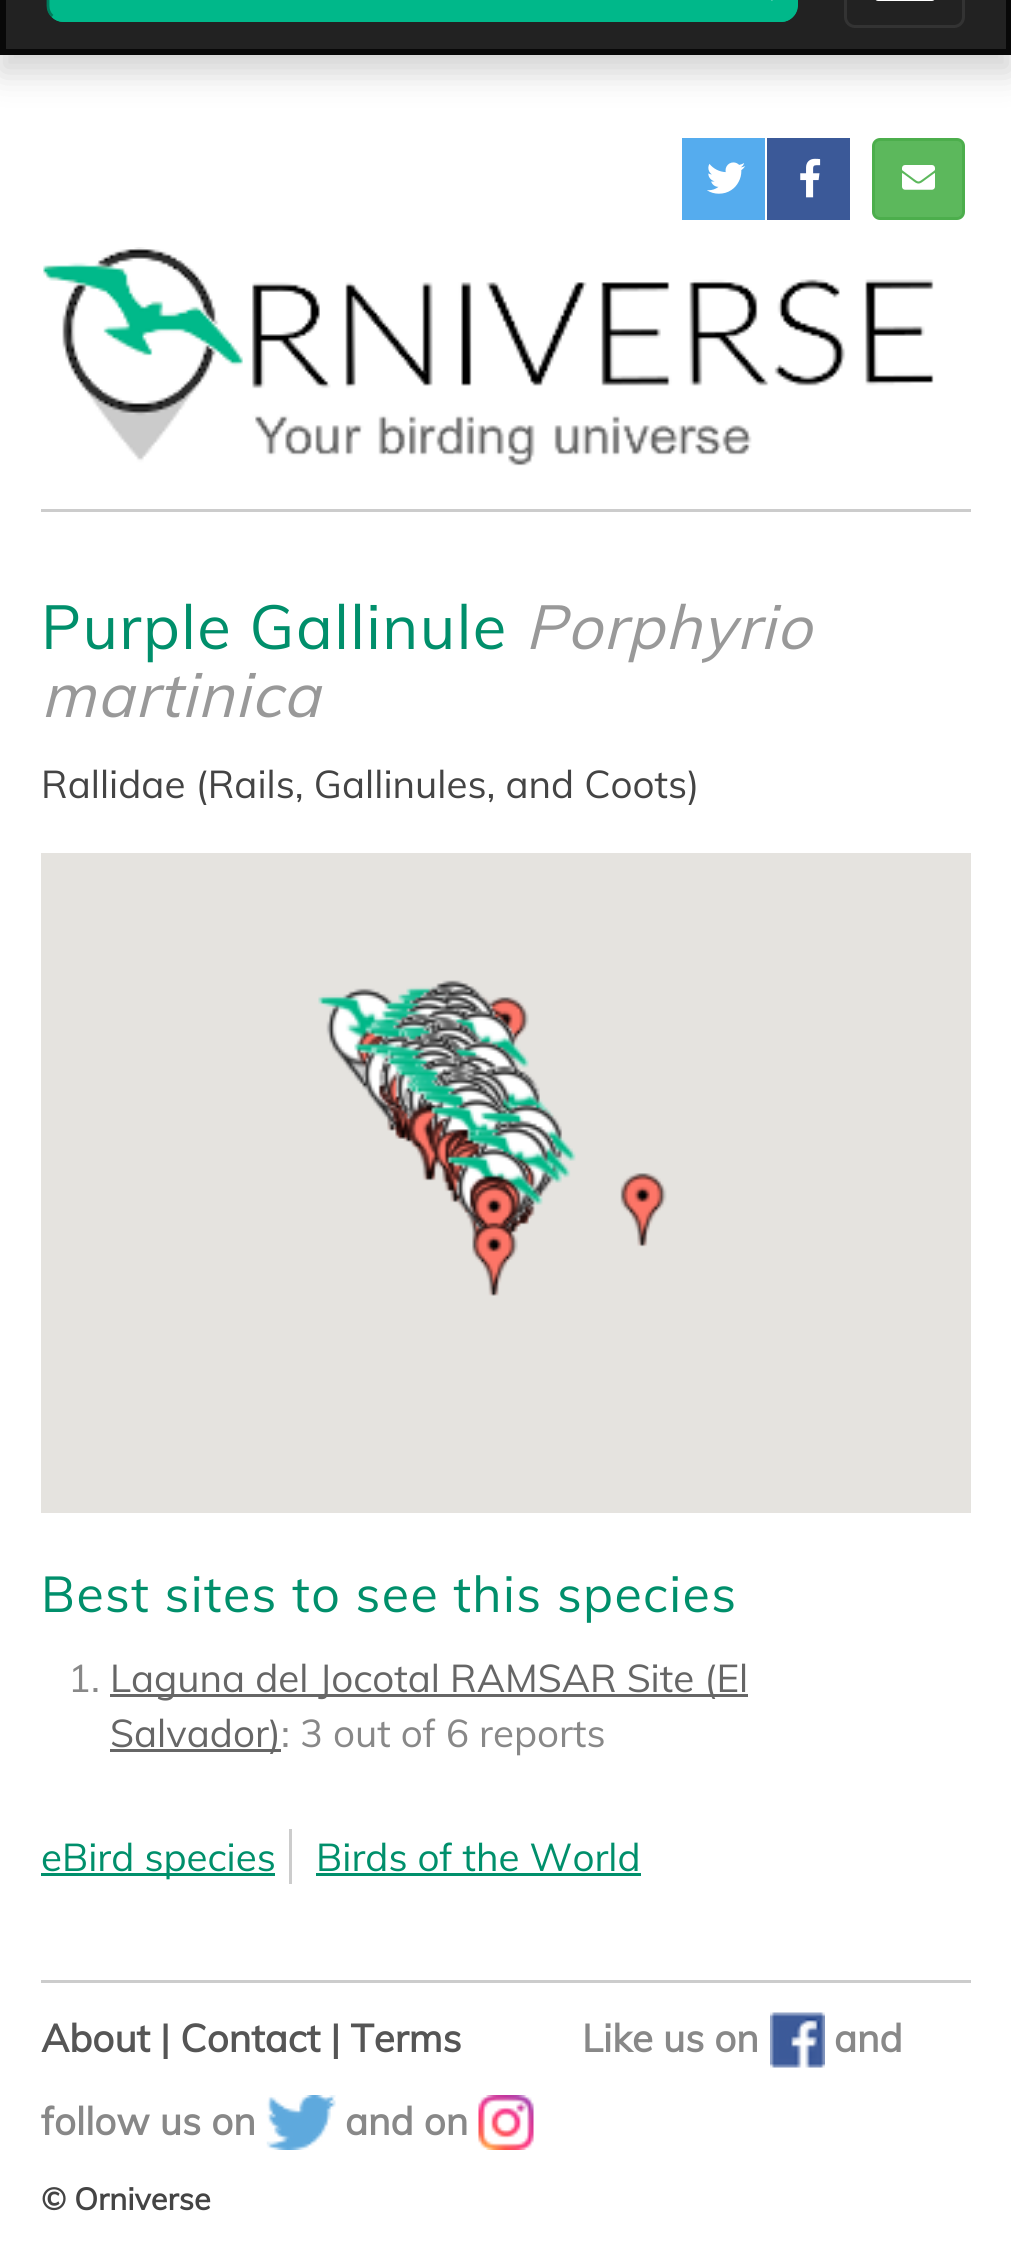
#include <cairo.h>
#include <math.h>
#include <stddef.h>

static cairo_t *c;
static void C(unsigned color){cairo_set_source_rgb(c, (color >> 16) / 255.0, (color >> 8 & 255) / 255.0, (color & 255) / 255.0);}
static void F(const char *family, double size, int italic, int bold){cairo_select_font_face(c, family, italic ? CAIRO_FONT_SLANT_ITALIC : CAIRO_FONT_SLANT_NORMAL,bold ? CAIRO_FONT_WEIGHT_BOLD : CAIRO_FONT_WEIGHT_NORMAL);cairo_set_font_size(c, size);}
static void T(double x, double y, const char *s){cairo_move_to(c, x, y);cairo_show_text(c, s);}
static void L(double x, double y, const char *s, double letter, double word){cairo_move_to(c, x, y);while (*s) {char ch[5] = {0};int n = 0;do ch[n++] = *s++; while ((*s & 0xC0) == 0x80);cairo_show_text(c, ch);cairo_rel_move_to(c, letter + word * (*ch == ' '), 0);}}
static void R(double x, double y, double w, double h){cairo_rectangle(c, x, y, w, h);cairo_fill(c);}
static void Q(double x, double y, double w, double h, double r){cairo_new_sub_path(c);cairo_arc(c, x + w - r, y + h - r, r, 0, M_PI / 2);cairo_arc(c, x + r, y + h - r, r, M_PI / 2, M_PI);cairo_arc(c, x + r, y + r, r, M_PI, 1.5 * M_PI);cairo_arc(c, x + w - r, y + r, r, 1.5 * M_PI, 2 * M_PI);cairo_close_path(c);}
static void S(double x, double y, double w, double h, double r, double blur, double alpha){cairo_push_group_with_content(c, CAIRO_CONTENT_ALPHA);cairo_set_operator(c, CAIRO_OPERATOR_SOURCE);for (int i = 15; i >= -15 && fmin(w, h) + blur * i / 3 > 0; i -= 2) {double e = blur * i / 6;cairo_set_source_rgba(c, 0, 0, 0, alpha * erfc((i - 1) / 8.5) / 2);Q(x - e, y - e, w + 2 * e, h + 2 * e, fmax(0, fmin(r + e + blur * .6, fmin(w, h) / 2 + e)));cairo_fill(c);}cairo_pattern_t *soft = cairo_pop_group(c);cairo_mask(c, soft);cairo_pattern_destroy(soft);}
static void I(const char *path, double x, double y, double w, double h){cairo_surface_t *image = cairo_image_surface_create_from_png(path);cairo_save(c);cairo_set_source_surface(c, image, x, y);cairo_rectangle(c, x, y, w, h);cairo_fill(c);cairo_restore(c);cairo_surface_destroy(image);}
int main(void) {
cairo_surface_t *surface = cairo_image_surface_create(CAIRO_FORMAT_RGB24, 1011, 2243);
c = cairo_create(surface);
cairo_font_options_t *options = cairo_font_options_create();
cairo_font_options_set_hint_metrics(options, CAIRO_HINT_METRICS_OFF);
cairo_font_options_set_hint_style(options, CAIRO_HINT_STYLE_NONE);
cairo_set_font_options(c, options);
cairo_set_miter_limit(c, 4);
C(0xffffff);
cairo_paint(c);
C(0x000000);
S(0,-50,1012,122,0,16.5,.18);
C(0x222222);
cairo_rectangle(c,3,-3,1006,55);
cairo_fill_preserve(c);
C(0x080808);
cairo_set_line_width(c,6);
cairo_stroke(c);
C(0x00b88a);
Q(47,-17,751,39,17);
cairo_fill(c);
cairo_new_path(c);
cairo_move_to(c,791.5,-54.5);
cairo_curve_to(c,794.5,-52,796,-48,796,-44);
cairo_line_to(c,796,5.5);
cairo_curve_to(c,796,9.5,794.5,13.5,791.5,16);
cairo_curve_to(c,789,19,785,20.5,781,20.5);
cairo_line_to(c,63,20.5);
cairo_curve_to(c,59,20.5,55.5,19,52.5,16);
cairo_set_line_width(c,2.8);
cairo_stroke(c);
cairo_new_path(c);
cairo_move_to(c,52.5,16);
cairo_curve_to(c,49.5,13.5,48,9.5,48,5.5);
cairo_line_to(c,48,-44);
cairo_curve_to(c,48,-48,49.5,-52,52.5,-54.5);
cairo_curve_to(c,55.5,-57.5,59,-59,63,-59);
cairo_line_to(c,781,-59);
cairo_curve_to(c,785,-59,789,-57.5,791.5,-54.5);
C(0x007b5c);
cairo_stroke(c);
I("1.png",771,0,2,1);
Q(845.5,-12.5,118,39,9.5);
C(0x333333);
cairo_set_line_width(c,3);
cairo_stroke(c);
C(0xffffff);
Q(875,-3,60,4,3);
cairo_fill(c);
C(0x55acee);
R(682,138,83,82);
I("2.png",707,162,39,32);
C(0x3b5998);
R(767,138,83,82);
I("3.png",800,158,21,40);
C(0x5cb85c);
Q(873.5,139.5,90,79,6.5);
cairo_fill_preserve(c);
C(0x4cae4c);
cairo_stroke(c);
I("4.png",902,165,33,25);
I("5.png",43,247,891,219);
C(0xcccccc);
R(41,509,930,3);
F("Muli",61.5,0,0);
C(0x008f6b);
L(41,649,"Purple Gallinule",1.4,0);
F("Muli",61.5,1,0);
C(0x999999);
L(525,649,"Porphyrio",1.4,0);
L(41,717,"martinica",1.4,0);
F("Muli",38.5,0,0);
C(0x444444);
T(41,798,"Rallidae (Rails, Gallinules, and Coots)");
C(0xe5e3df);
R(41,853,930,660);
I("6.png",318,980,349,316);
F("Muli",50,0,0);
C(0x008f6b);
L(41,1612,"Best sites to see this species",1.4,0);
F("Muli",38.5,0,0);
C(0x888888);
T(68,1692,"1.");
C(0x666666);
R(110,1694,638,3);
T(110,1692,"Laguna del Jocotal RAMSAR Site (El");
R(110,1749,171,3);
T(110,1747,"Salvador)");
C(0x888888);
T(281,1747,": 3 out of 6 reports");
C(0xcccccc);
R(289,1829,3,55);
C(0x008f6b);
R(41,1873,234,3);
T(41,1871,"eBird species");
T(316,1871,"Birds of the World");
R(316,1873,325,3);
C(0xcccccc);
R(41,1980,930,3);
F("Muli",38.5,0,1);
C(0x555555);
T(41,2052,"About | Contact | Terms");
C(0x888888);
T(582,2052,"Like us on");
I("7.png",770,2012,55,56);
T(834,2052,"and");
T(41,2135,"follow us on");
I("8.png",266,2095,70,55);
T(345,2135,"and on");
I("9.png",478,2095,56,55);
F("Muli",30.75,0,1);
C(0x444444);
T(41,2210,"© Orniverse");
cairo_surface_write_to_png(surface, "o.png");
cairo_font_options_destroy(options);
cairo_destroy(c);
cairo_surface_destroy(surface);
return 0;
}
